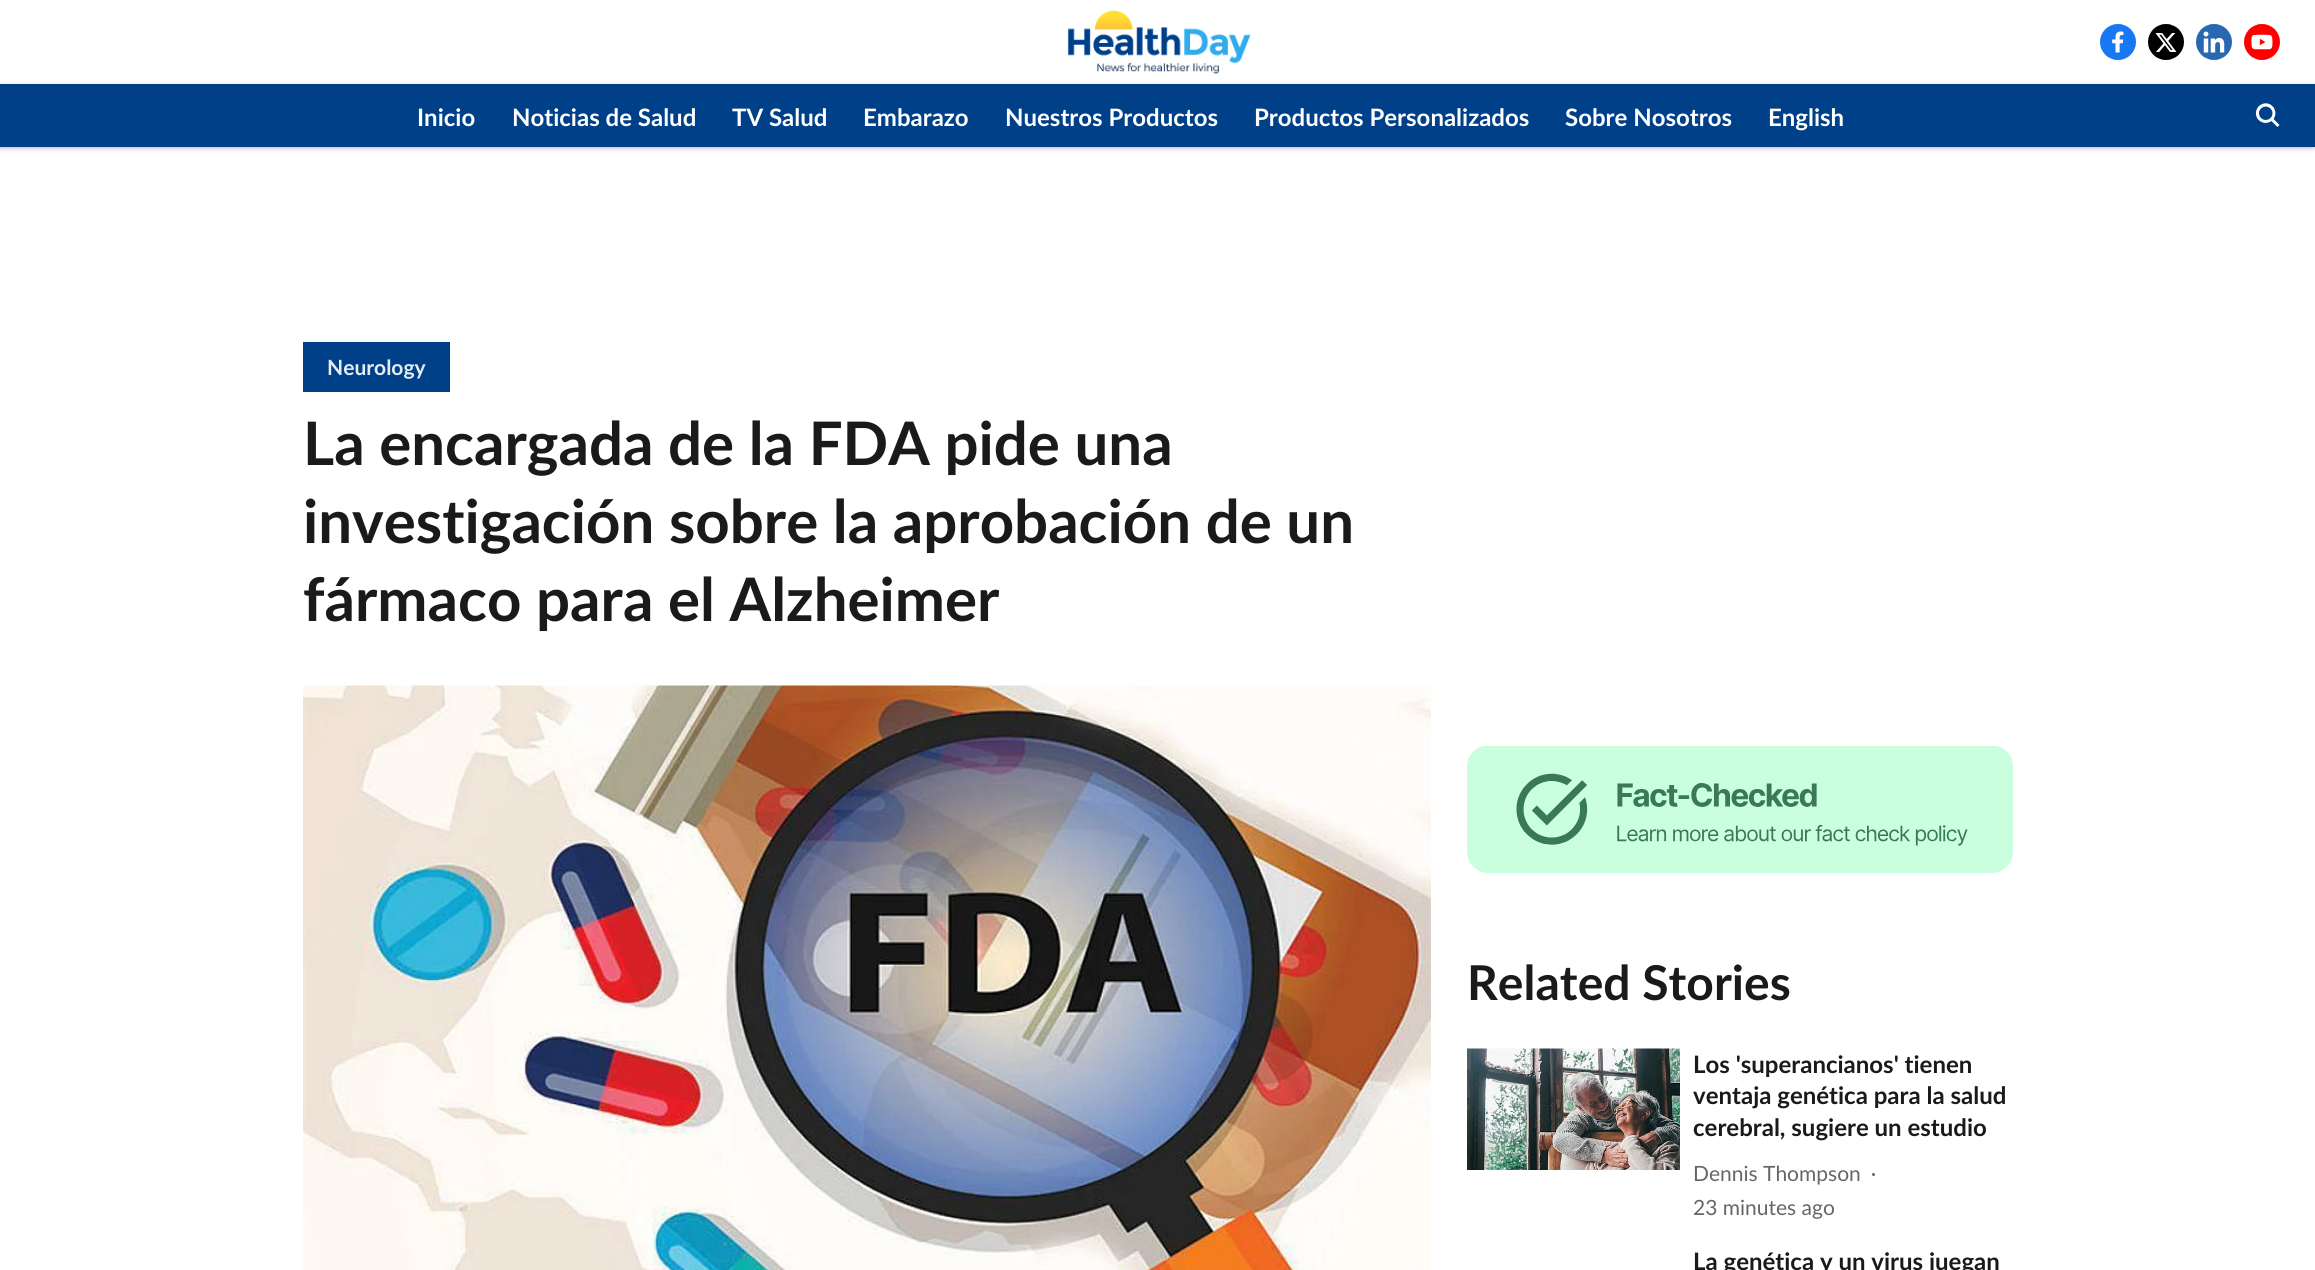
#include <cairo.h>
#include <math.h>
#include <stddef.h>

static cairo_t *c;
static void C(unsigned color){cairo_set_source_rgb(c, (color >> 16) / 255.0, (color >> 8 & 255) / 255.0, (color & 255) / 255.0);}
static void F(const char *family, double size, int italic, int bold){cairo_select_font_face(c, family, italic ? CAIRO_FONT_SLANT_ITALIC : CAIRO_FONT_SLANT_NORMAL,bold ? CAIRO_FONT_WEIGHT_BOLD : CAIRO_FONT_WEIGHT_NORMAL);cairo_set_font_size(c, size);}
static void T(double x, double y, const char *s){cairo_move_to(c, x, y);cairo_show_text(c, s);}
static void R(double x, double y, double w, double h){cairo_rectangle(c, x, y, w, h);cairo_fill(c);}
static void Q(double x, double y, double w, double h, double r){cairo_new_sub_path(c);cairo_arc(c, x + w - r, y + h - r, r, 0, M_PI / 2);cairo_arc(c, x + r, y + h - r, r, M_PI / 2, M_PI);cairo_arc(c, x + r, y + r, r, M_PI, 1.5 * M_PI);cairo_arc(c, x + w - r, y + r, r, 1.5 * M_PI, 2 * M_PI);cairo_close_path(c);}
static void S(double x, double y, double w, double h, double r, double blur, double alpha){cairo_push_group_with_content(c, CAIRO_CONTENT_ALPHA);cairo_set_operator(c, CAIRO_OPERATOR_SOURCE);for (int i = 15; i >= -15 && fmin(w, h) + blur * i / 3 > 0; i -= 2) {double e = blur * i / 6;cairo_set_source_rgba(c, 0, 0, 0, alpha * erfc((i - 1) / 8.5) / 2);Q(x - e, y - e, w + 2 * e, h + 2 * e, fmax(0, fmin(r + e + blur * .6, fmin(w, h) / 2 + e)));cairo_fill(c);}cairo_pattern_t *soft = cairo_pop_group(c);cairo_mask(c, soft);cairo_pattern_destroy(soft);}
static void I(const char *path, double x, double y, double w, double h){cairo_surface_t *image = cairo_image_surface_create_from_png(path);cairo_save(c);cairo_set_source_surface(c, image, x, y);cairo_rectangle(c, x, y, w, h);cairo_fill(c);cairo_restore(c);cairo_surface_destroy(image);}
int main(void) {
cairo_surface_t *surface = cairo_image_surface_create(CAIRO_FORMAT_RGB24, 2315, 1270);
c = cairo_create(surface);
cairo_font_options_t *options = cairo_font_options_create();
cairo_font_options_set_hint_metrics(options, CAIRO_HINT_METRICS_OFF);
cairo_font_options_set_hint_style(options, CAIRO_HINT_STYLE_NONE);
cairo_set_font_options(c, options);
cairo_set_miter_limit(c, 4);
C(0xffffff);
cairo_paint(c);
I("1.png",1067,10,184,65);
I("2.png",2100,24,36,36);
I("3.png",2148,24,36,36);
I("4.png",2196,24,36,36);
I("5.png",2244,24,36,36);
C(0x000000);
S(0,87,2313,60,0,3,.39);
C(0x004089);
R(0,84,2315,63);
F("Lato",24,0,1);
C(0xffffff);
T(417,126,"Inicio");
T(512,126,"Noticias de Salud");
T(732,126,"TV Salud");
T(863,126,"Embarazo");
T(1005,126,"Nuestros Productos");
T(1254,126,"Productos Personalizados");
T(1565,126,"Sobre Nosotros");
T(1768,126,"English");
I("6.png",2255,103,25,24);
C(0x004089);
R(303,342,147,50);
F("Lato",21,0,1);
C(0xe6ecf3);
T(327,375,"Neurology");
F("Lato",60,0,1);
C(0x1a1a1a);
T(303,465,"La encargada de la FDA pide una");
T(303,543,"investigación sobre la aprobación de un");
T(303,621,"fármaco para el Alzheimer");
I("7.png",303,685,1128,585);
I("8.png",1467,746,546,127);
F("Lato",48,0,1);
T(1467,1000,"Related Stories");
I("9.png",1467,1048,213,122);
F("Lato",24,0,1);
T(1693,1073,"Los 'superancianos' tienen");
T(1693,1104,"ventaja genética para la salud");
T(1693,1136,"cerebral, sugiere un estudio");
F("Lato",21,0,0);
C(0x666666);
T(1693,1181,"Dennis Thompson");
cairo_new_path(c);
cairo_arc(c,1873.5,1174.5,1.5,0,2 * M_PI);
cairo_fill(c);
T(1693,1215,"23 minutes ago");
F("Lato",24,0,1);
C(0x1a1a1a);
T(1693,1270,"La genética y un virus juegan");
cairo_surface_write_to_png(surface, "o.png");
cairo_font_options_destroy(options);
cairo_destroy(c);
cairo_surface_destroy(surface);
return 0;
}
